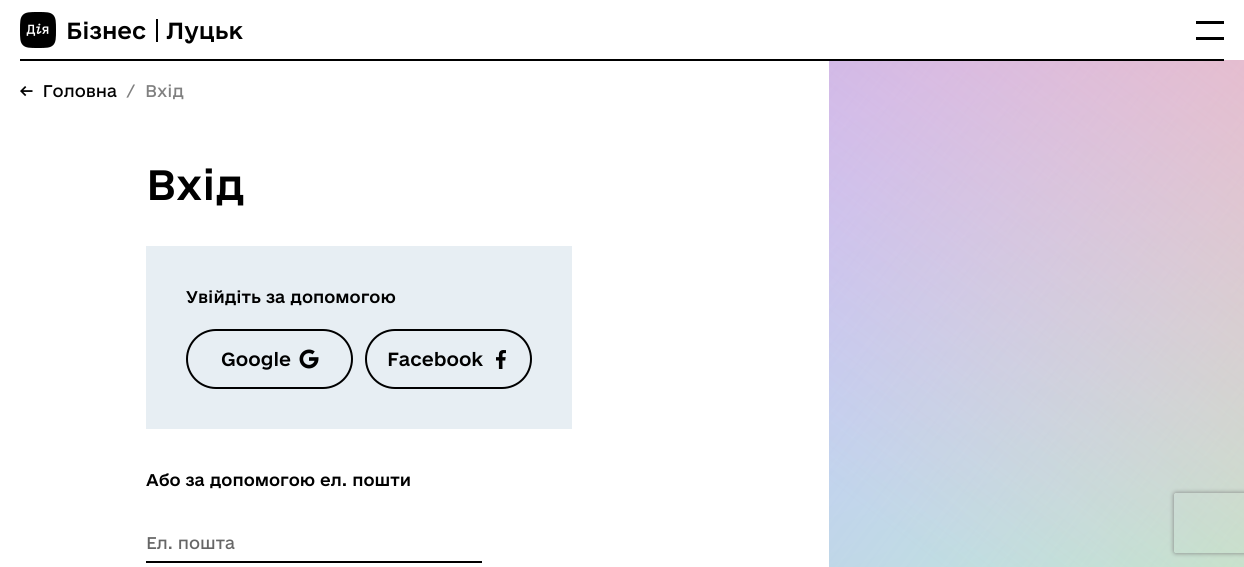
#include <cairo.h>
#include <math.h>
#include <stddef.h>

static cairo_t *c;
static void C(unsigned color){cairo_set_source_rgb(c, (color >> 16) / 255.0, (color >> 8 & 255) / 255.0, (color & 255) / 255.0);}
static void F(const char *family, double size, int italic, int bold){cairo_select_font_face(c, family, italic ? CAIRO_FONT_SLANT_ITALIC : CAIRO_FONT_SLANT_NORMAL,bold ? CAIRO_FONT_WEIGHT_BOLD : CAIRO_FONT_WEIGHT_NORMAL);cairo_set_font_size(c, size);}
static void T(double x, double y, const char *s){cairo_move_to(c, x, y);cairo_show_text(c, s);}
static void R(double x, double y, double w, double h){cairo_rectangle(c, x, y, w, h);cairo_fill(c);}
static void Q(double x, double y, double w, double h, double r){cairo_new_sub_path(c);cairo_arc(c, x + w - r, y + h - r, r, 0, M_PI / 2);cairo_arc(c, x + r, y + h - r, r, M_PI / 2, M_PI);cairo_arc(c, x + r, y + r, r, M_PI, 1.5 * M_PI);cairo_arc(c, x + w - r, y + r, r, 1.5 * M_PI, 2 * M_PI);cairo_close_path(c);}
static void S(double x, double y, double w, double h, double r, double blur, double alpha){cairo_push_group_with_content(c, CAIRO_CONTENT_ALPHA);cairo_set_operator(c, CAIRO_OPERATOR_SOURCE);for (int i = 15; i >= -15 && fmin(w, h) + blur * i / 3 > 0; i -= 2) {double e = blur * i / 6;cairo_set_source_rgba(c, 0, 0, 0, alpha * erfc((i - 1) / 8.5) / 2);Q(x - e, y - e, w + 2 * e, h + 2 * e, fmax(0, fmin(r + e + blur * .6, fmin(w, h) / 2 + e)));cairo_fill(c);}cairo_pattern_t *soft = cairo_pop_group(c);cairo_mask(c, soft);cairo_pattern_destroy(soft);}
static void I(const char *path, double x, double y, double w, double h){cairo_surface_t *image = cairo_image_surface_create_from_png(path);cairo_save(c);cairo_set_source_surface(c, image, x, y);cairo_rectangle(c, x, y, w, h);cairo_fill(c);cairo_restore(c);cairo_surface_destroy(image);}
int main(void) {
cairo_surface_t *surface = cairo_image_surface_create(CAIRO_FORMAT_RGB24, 1244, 567);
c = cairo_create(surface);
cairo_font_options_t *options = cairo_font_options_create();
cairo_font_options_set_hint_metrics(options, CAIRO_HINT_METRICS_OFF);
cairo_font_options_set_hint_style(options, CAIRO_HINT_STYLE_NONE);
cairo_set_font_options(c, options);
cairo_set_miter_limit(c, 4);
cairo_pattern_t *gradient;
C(0xffffff);
cairo_paint(c);
I("1.png",20,12,36,36);
F("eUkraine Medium",22,0,0);
C(0x000000);
T(66,39,"Бізнес");
R(156,19,2,23);
T(166,39,"Луцьк");
R(1196,21,28,3);
R(1196,37,28,3);
gradient = cairo_pattern_create_linear(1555,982,933,-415);
cairo_pattern_add_color_stop_rgba(gradient,0,0.6,1,0.6,1);
cairo_pattern_add_color_stop_rgba(gradient,.71,1,1,1,1);
cairo_set_source(c,gradient);
cairo_pattern_destroy(gradient);
R(829,60,415,507);
gradient = cairo_pattern_create_linear(314,-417,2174,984);
cairo_pattern_add_color_stop_rgba(gradient,0,0.6,0.6,1,1);
cairo_pattern_add_color_stop_rgba(gradient,.71,0.6,0.6,1,0);
cairo_set_source(c,gradient);
cairo_pattern_destroy(gradient);
R(829,60,415,507);
gradient = cairo_pattern_create_linear(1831,-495,657,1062);
cairo_pattern_add_color_stop_rgba(gradient,0,1,0.6,0.6,1);
cairo_pattern_add_color_stop_rgba(gradient,.71,1,0.6,0.6,0);
cairo_set_source(c,gradient);
cairo_pattern_destroy(gradient);
R(829,60,415,507);
C(0x000000);
R(20,59,1204,2);
F("eUkraine",16,0,0);
T(20,97,"←  Головна");
C(0x808080);
T(127,97,"/");
T(145,97,"Вхід");
F("eUkraine Medium",40,0,0);
C(0x000000);
T(146,200,"Вхід");
C(0xe7eef3);
R(146,246,426,183);
F("eUkraine Medium",16,0,0);
C(0x000000);
T(186,303,"Увійдіть за допомогою");
Q(187,330,165,58,29);
cairo_stroke(c);
F("eUkraine Medium",18,0,0);
T(221,366,"Google");
I("2.png",299,349,20,20);
Q(366,330,165,58,29);
cairo_stroke(c);
T(387,366,"Facebook");
I("3.png",496,350,10,19);
F("eUkraine Medium",16,0,0);
T(146,486,"Або за допомогою ел. пошти");
F("eUkraine",16,0,0);
C(0x666666);
T(146,549,"Ел. пошта");
C(0x000000);
R(146,561,336,2);
cairo_save(c);
cairo_set_fill_rule(c,CAIRO_FILL_RULE_EVEN_ODD);
cairo_new_path(c);
cairo_move_to(c,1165,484);
cairo_line_to(c,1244,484);
cairo_line_to(c,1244,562);
cairo_line_to(c,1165,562);
cairo_close_path(c);
cairo_move_to(c,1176,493);
cairo_line_to(c,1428,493);
cairo_curve_to(c,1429,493,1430,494,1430,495);
cairo_line_to(c,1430,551);
cairo_curve_to(c,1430,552,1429,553,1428,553);
cairo_line_to(c,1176,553);
cairo_curve_to(c,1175,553,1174,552,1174,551);
cairo_line_to(c,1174,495);
cairo_curve_to(c,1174,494,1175,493,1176,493);
cairo_close_path(c);
cairo_clip(c);
C(0x808080);
S(1174,493,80,60,2,2.5,1);
cairo_restore(c);
cairo_surface_write_to_png(surface, "o.png");
cairo_font_options_destroy(options);
cairo_destroy(c);
cairo_surface_destroy(surface);
return 0;
}
